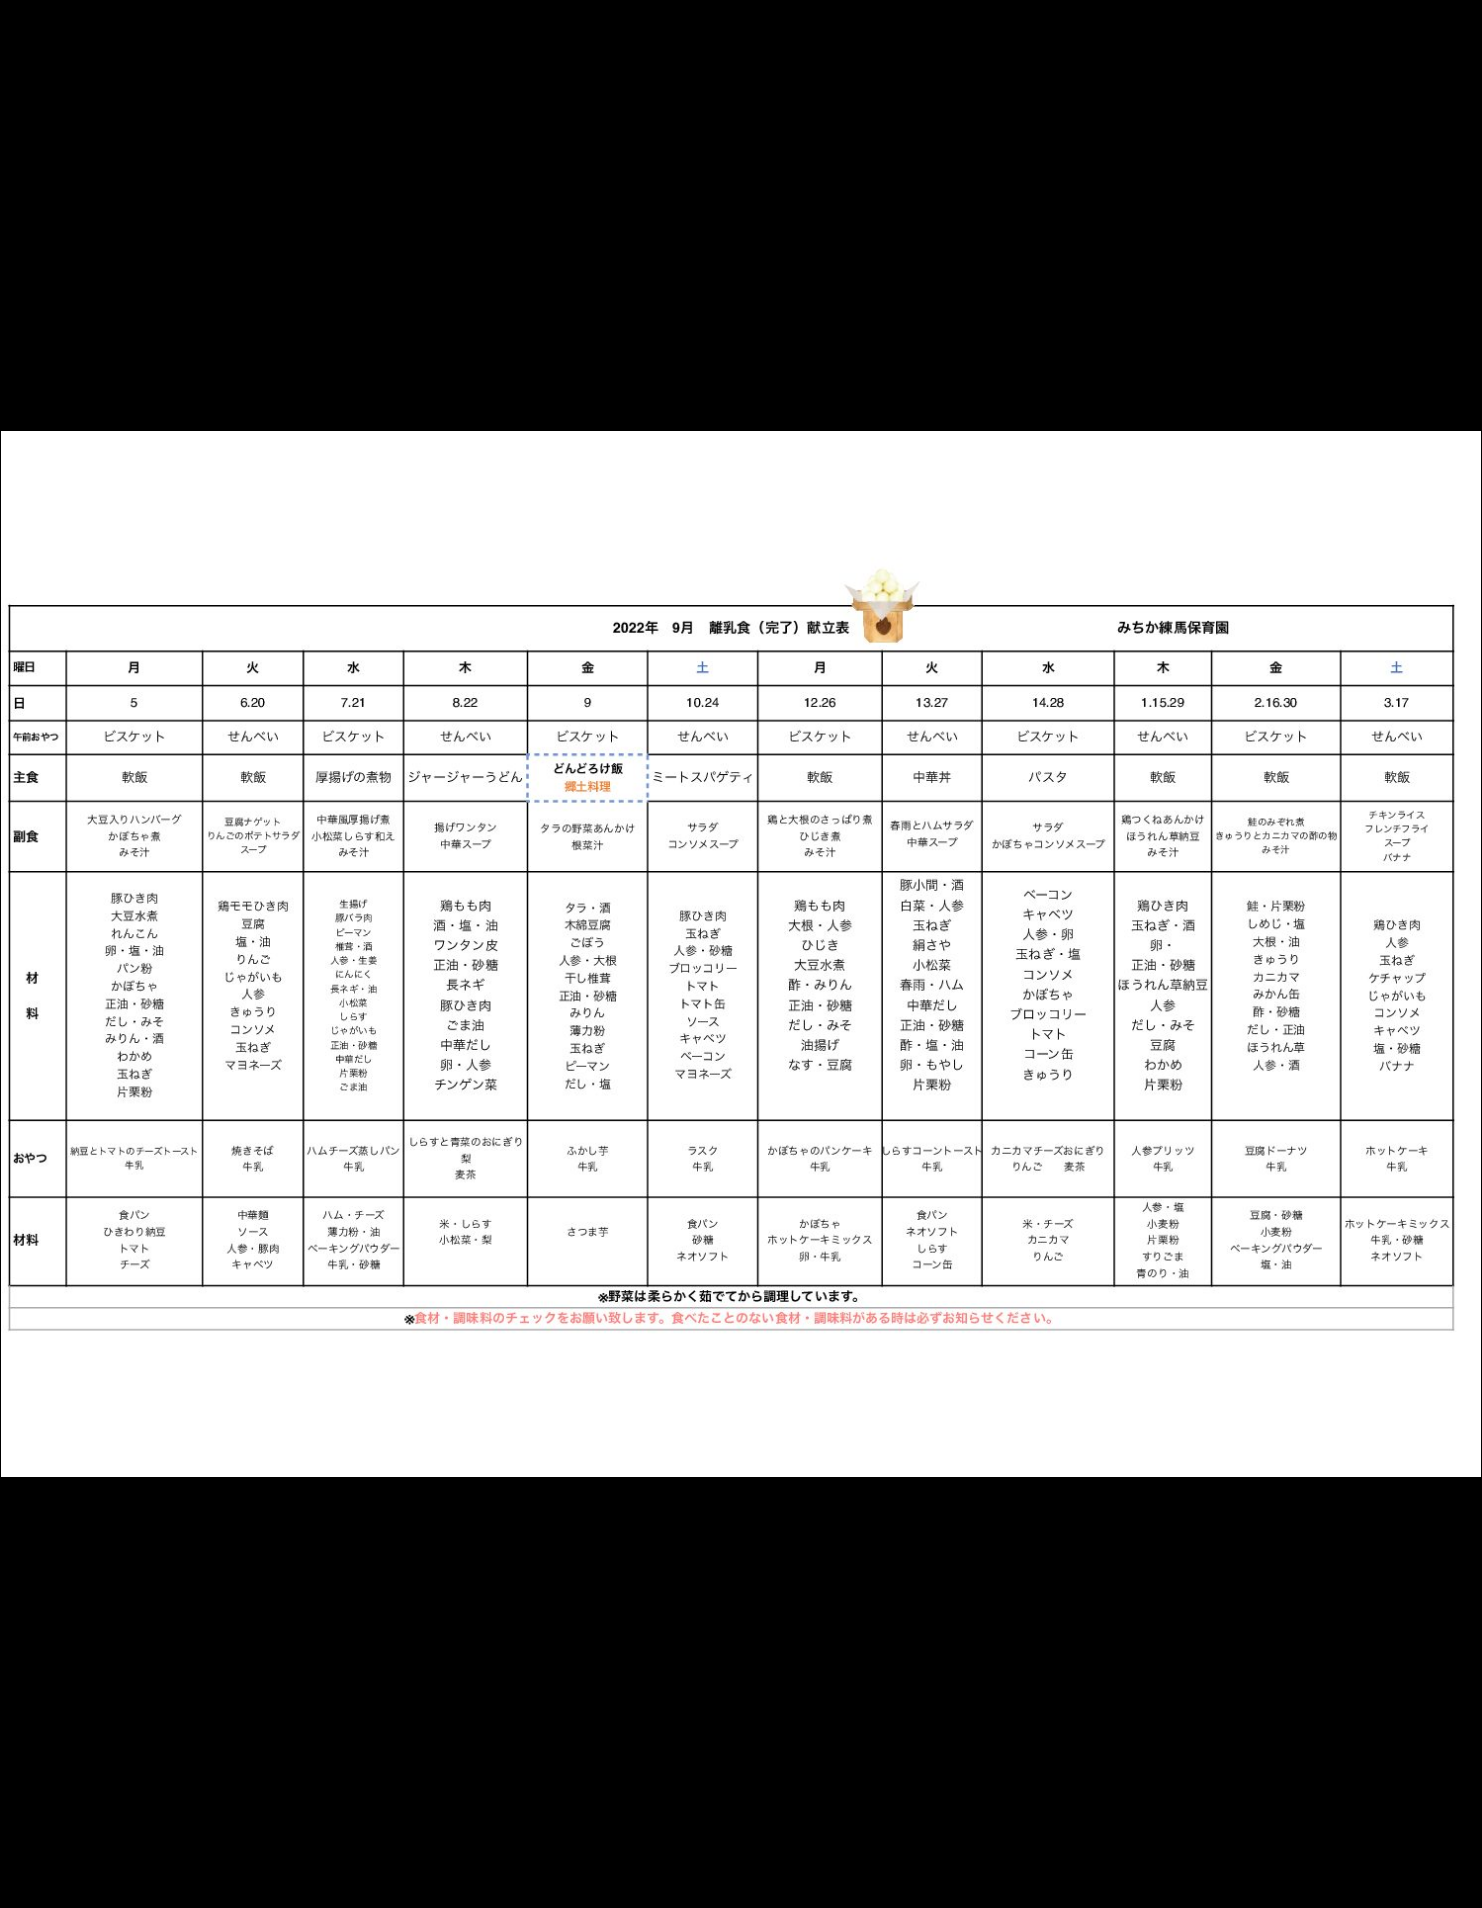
#include <cairo.h>
#include <math.h>
#include <stddef.h>

static cairo_t *c;
static void C(unsigned color){cairo_set_source_rgb(c, (color >> 16) / 255.0, (color >> 8 & 255) / 255.0, (color & 255) / 255.0);}
static void I(const char *path, double x, double y, double w, double h){cairo_surface_t *image = cairo_image_surface_create_from_png(path);cairo_save(c);cairo_set_source_surface(c, image, x, y);cairo_rectangle(c, x, y, w, h);cairo_fill(c);cairo_restore(c);cairo_surface_destroy(image);}
int main(void) {
cairo_surface_t *surface = cairo_image_surface_create(CAIRO_FORMAT_RGB24, 1482, 1908);
c = cairo_create(surface);
cairo_font_options_t *options = cairo_font_options_create();
cairo_font_options_set_hint_metrics(options, CAIRO_HINT_METRICS_OFF);
cairo_font_options_set_hint_style(options, CAIRO_HINT_STYLE_NONE);
cairo_set_font_options(c, options);
cairo_set_miter_limit(c, 4);
C(0x000000);
cairo_paint(c);
I("1.png",1,431,1480,1046);
cairo_surface_write_to_png(surface, "o.png");
cairo_font_options_destroy(options);
cairo_destroy(c);
cairo_surface_destroy(surface);
return 0;
}
